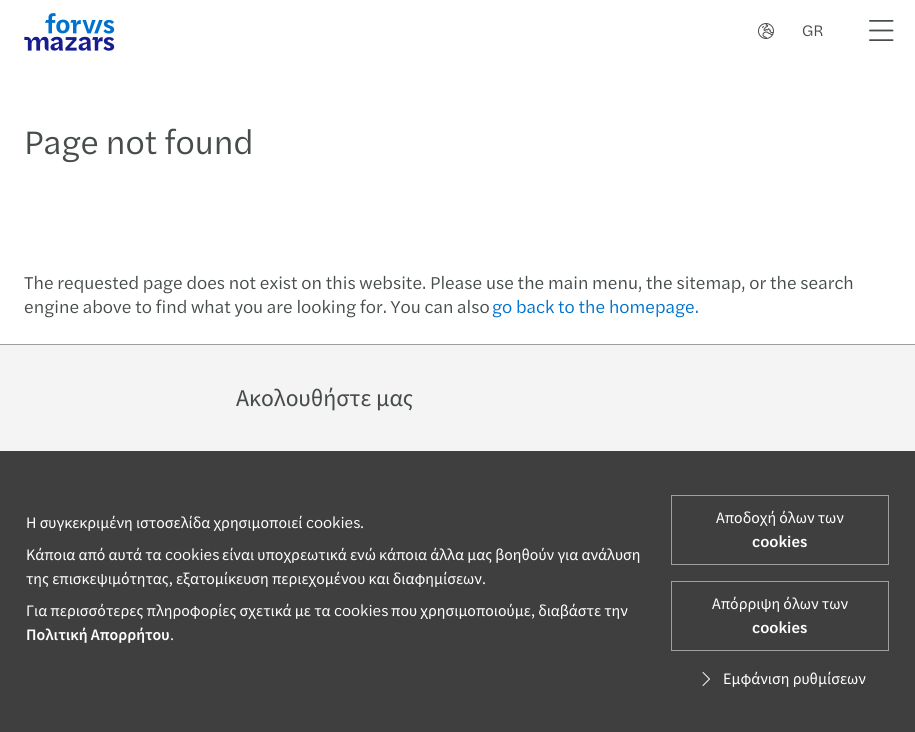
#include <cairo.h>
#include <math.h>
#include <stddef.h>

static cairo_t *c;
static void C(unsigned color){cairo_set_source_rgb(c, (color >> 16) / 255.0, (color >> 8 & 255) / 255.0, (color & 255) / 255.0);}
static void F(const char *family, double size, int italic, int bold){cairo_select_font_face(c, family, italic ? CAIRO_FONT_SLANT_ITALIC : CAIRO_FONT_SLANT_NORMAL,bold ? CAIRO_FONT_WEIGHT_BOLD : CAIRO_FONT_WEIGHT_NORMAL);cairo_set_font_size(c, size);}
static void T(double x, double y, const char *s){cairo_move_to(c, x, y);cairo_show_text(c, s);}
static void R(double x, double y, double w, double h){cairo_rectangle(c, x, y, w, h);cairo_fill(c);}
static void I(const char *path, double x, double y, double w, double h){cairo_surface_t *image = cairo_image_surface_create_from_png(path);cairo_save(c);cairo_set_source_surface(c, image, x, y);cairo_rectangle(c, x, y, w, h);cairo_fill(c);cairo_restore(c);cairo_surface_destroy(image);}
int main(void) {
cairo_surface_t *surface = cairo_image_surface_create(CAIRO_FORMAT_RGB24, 915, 732);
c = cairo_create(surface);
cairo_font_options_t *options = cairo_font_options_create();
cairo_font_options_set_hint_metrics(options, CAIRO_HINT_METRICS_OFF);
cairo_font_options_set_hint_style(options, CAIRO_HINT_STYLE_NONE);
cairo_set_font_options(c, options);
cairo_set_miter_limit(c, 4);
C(0xffffff);
cairo_paint(c);
I("1.png",24,13,91,38);
I("2.png",758,23,16,16);
F("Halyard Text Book",16,0,0);
C(0x464b4b);
T(802,36,"GR");
I("3.png",869,20,25,21);
F("Halyard Text Book",34,0,0);
T(24,154,"Page not found");
F("Halyard Text Book",18,0,0);
T(24,289,"The requested page does not exist on this website. Please use the main menu, the sitemap, or the search");
T(24,313,"engine above to find what you are looking for. You can also");
C(0x0072ce);
T(492,313,"go back to the homepage.");
C(0xf4f4f4);
R(0,345,915,106);
C(0x9d9d9d);
R(0,344,915,1);
F("Source Sans Pro",24,0,0);
C(0x464b4b);
T(236,406,"Ακολουθήστε μας");
C(0x3f3f3f);
R(0,451,915,281);
F("Source Sans Pro",16,0,0);
C(0xffffff);
T(26,528,"Η συγκεκριμένη ιστοσελίδα χρησιμοποιεί");
F("Halyard Text Book",16,0,0);
T(306,528,"cookies");
F("Source Sans Pro",16,0,0);
T(360,528,".");
T(26,560,"Κάποια από αυτά τα");
F("Halyard Text Book",16,0,0);
T(165,560,"cookies");
F("Source Sans Pro",16,0,0);
T(222,560,"είναι υποχρεωτικά ενώ κάποια άλλα μας βοηθούν για ανάλυση");
T(26,584,"της επισκεψιμότητας, εξατομίκευση περιεχομένου και διαφημίσεων.");
T(26,616,"Για περισσότερες πληροφορίες σχετικά με τα");
F("Halyard Text Book",16,0,0);
T(334,616,"cookies");
F("Source Sans Pro",16,0,0);
T(391,616,"που χρησιμοποιούμε, διαβάστε την");
F("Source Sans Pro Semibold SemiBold",16,0,0);
T(26,640,"Πολιτική Απορρήτου");
F("Source Sans Pro",16,0,0);
T(170,640,".");
cairo_rectangle(c,671.5,495.5,217,69);
C(0x9f9f9f);
cairo_set_line_width(c,1);
cairo_stroke(c);
C(0xffffff);
T(716,523,"Αποδοχή όλων των");
F("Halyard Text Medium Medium",16,0,0);
T(752,547,"cookies");
cairo_rectangle(c,671.5,581.5,217,69);
C(0x9f9f9f);
cairo_stroke(c);
F("Source Sans Pro",16,0,0);
C(0xffffff);
T(712,609,"Απόρριψη όλων των");
F("Halyard Text Medium Medium",16,0,0);
T(752,633,"cookies");
I("4.png",702,672,8,14);
F("Source Sans Pro",16,0,0);
T(723,684,"Εμφάνιση ρυθμίσεων");
cairo_surface_write_to_png(surface, "o.png");
cairo_font_options_destroy(options);
cairo_destroy(c);
cairo_surface_destroy(surface);
return 0;
}
